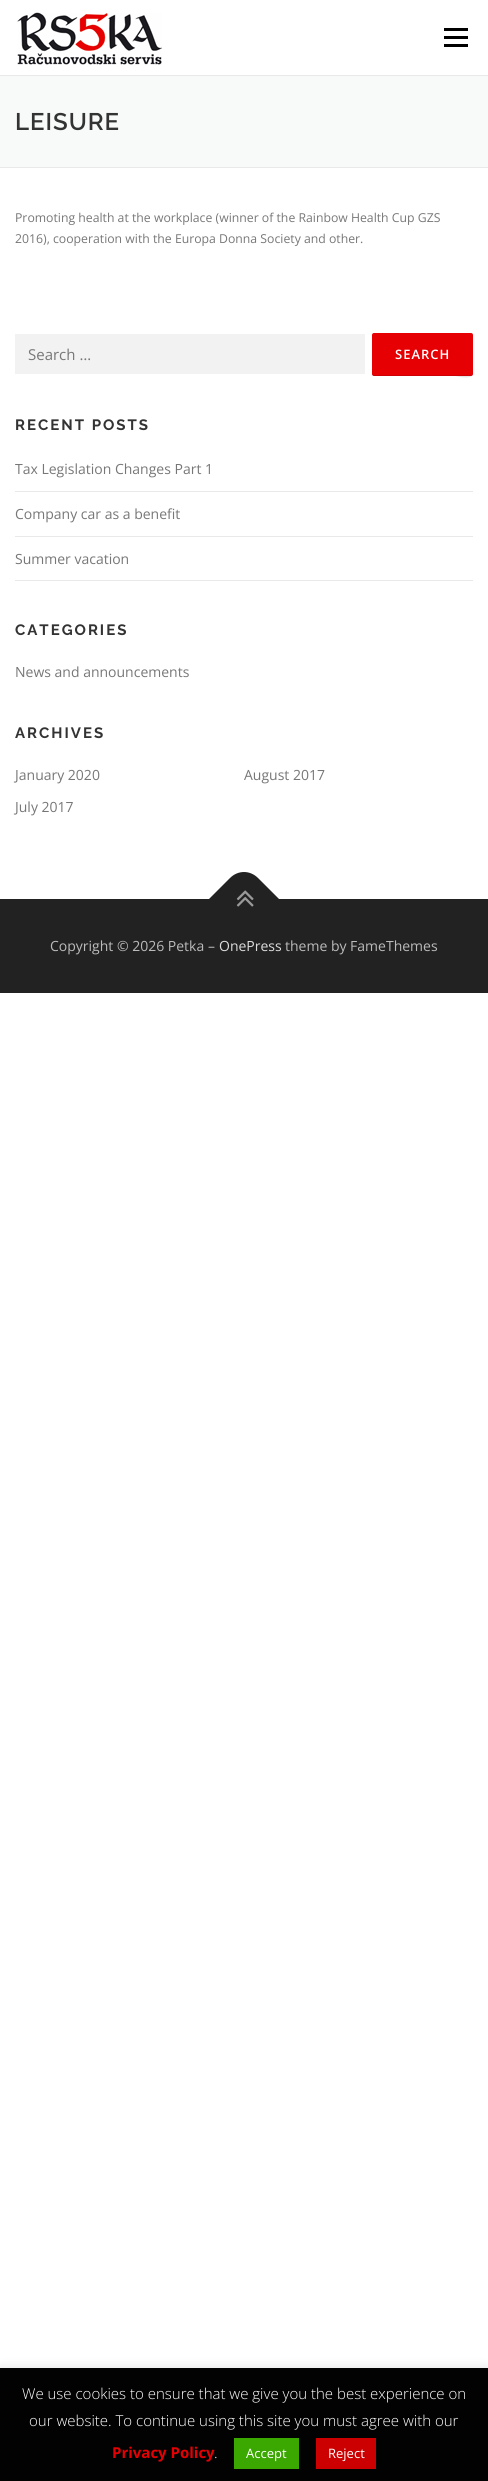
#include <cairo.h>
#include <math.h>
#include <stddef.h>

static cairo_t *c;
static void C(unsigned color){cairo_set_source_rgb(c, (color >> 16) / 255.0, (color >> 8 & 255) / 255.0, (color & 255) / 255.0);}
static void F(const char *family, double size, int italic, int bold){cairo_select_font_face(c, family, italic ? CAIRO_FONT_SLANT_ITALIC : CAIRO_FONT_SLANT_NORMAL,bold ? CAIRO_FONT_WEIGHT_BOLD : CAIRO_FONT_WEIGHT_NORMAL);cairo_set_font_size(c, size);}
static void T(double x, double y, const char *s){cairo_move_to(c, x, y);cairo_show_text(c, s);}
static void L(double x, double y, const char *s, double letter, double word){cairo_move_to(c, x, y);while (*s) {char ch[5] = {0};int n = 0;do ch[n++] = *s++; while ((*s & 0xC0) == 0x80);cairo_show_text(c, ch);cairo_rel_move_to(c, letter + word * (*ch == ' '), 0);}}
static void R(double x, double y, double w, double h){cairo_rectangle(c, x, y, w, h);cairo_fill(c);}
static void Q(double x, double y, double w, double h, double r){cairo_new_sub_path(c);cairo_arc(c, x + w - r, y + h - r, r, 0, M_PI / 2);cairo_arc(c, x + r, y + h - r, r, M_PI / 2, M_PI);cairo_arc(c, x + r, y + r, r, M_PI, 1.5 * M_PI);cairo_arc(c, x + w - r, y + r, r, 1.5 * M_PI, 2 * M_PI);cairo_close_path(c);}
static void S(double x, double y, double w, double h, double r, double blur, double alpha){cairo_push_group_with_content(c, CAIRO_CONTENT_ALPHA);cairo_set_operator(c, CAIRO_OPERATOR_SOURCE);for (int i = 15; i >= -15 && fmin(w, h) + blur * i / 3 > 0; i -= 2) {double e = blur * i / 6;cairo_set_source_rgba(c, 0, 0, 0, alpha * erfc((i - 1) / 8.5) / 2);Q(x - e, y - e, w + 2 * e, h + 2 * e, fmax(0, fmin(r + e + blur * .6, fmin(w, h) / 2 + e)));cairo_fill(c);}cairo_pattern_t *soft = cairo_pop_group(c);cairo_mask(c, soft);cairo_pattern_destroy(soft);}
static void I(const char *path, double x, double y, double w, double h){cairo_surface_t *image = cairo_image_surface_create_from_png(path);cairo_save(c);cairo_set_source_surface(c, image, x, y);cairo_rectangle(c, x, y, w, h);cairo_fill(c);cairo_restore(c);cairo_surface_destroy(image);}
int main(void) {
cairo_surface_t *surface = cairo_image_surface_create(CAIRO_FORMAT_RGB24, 488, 2481);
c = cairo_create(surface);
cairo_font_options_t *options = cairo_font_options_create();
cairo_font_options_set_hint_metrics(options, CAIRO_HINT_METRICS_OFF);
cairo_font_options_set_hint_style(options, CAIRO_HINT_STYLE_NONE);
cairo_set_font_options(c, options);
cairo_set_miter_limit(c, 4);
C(0xffffff);
cairo_paint(c);
I("1.png",17,12,145,53);
C(0x000000);
R(444,36,24,3);
R(444,28,24,3);
R(444,44,24,3);
C(0xf8f9f9);
R(0,76,488,91);
C(0xe9e9e9);
R(0,75,488,1);
R(0,167,488,1);
F("Raleway SemiBold",24,0,0);
C(0x333333);
L(15,130,"LEISURE",1,0);
F("Open Sans",12.25,0,0);
C(0x777777);
T(15,222,"Promoting health at the workplace (winner of the Rainbow Health Cup GZS");
T(15,243,"2016), cooperation with the Europa Donna Society and other.");
C(0xf2f2f2);
R(15,334,350,40);
F("Open Sans",15,0,0);
C(0x777777);
T(28,360,"Search …");
C(0xe60003);
Q(372,333,101,43,2);
cairo_fill(c);
cairo_set_source_rgba(c,0,0,0,0.1);
cairo_new_path(c);
cairo_move_to(c,372,373);
cairo_curve_to(c,372,374,372,376,374,376);
cairo_line_to(c,455,376);
cairo_curve_to(c,456,376,473,381,473,373);
cairo_curve_to(c,473,374,472,375,471,375);
cairo_line_to(c,374,375);
cairo_curve_to(c,373,375,372,374,372,373);
cairo_close_path(c);
cairo_fill(c);
F("Open Sans SemiBold",13,0,0);
C(0xffffff);
L(395,359,"SEARCH",1,0);
F("Raleway",15,0,1);
C(0x333333);
L(15,430,"RECENT POSTS",2,0);
C(0xe9e9e9);
R(15,491,458,1);
F("Open Sans",14,0,0);
C(0x777777);
T(15,474,"Tax Legislation Changes Part 1");
C(0xe9e9e9);
R(15,536,458,1);
C(0x777777);
T(15,519,"Company car as a benefit");
C(0xe9e9e9);
R(15,580,458,1);
C(0x777777);
T(15,564,"Summer vacation");
F("Raleway",15,0,1);
C(0x333333);
L(15,635,"CATEGORIES",2,0);
F("Open Sans",14,0,0);
C(0x777777);
T(15,677,"News and announcements");
F("Raleway",15,0,1);
C(0x333333);
L(15,738,"ARCHIVES",2,0);
F("Open Sans",14,0,0);
C(0x777777);
T(15,780,"January 2020");
T(244,780,"August 2017");
T(15,812,"July 2017");
C(0x222222);
R(0,899,488,94);
cairo_new_path(c);
cairo_move_to(c,209,899);
cairo_line_to(c,230,878);
cairo_curve_to(c,238,870,250,870,258,878);
cairo_line_to(c,279,899);
cairo_line_to(c,244,934);
cairo_close_path(c);
cairo_fill(c);
I("2.png",236,890,18,17);
C(0xbbbbbb);
T(50,951,"Copyright © 2026 Petka –");
C(0xdddddd);
T(219,951,"OnePress");
C(0xbbbbbb);
T(285,951,"theme by FameThemes");
C(0xacabab);
S(0,2367,488,113,0,5,.3);
C(0x020202);
R(0,2368,488,113);
F("Open Sans Light",15,0,0);
C(0xffffff);
T(22,2399,"We use cookies to ensure that we give you the best experience on");
T(29,2426,"our website. To continue using this site you must agree with our");
F("Open Sans",15,0,1);
C(0xe60003);
T(112,2458,"Privacy Policy");
F("Open Sans Light",15,0,0);
C(0xffffff);
T(214,2458,".");
C(0x3aa800);
R(234,2438,65,31);
F("Open Sans",13,0,0);
C(0xffffff);
T(246,2458,"Accept");
C(0xcc0000);
R(316,2438,60,31);
C(0xffffff);
T(328,2458,"Reject");
cairo_surface_write_to_png(surface, "o.png");
cairo_font_options_destroy(options);
cairo_destroy(c);
cairo_surface_destroy(surface);
return 0;
}
